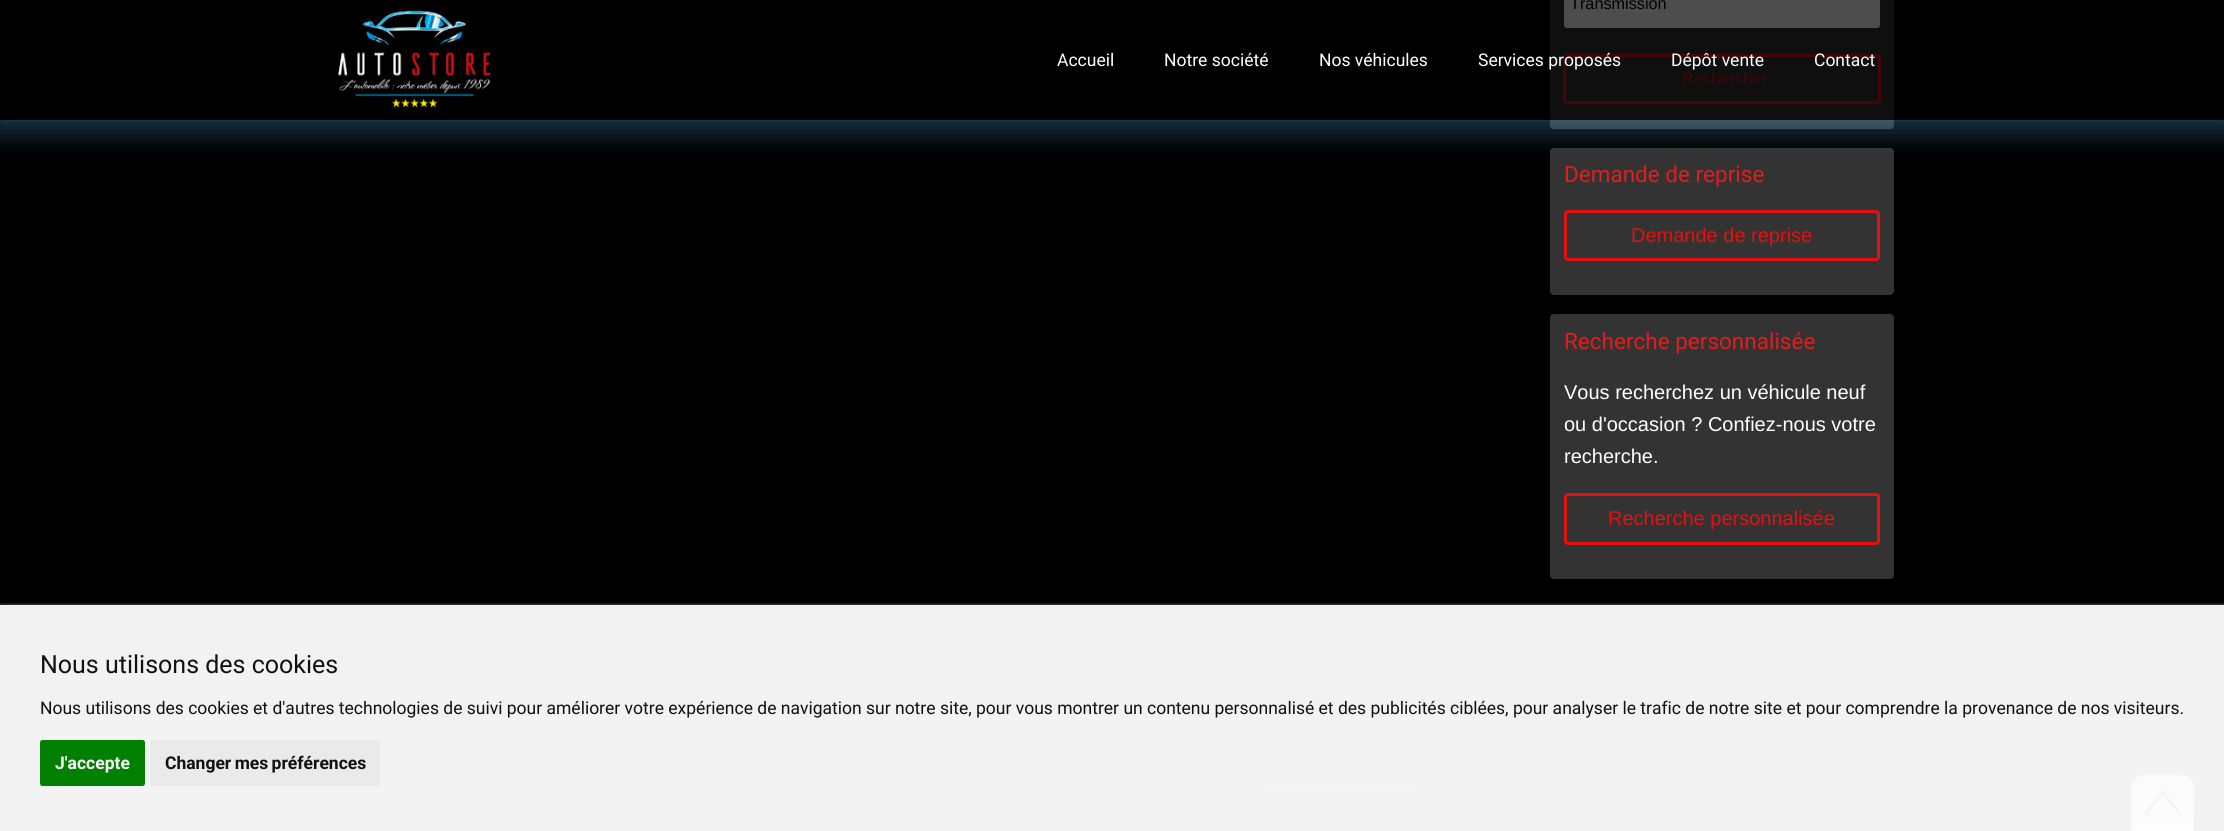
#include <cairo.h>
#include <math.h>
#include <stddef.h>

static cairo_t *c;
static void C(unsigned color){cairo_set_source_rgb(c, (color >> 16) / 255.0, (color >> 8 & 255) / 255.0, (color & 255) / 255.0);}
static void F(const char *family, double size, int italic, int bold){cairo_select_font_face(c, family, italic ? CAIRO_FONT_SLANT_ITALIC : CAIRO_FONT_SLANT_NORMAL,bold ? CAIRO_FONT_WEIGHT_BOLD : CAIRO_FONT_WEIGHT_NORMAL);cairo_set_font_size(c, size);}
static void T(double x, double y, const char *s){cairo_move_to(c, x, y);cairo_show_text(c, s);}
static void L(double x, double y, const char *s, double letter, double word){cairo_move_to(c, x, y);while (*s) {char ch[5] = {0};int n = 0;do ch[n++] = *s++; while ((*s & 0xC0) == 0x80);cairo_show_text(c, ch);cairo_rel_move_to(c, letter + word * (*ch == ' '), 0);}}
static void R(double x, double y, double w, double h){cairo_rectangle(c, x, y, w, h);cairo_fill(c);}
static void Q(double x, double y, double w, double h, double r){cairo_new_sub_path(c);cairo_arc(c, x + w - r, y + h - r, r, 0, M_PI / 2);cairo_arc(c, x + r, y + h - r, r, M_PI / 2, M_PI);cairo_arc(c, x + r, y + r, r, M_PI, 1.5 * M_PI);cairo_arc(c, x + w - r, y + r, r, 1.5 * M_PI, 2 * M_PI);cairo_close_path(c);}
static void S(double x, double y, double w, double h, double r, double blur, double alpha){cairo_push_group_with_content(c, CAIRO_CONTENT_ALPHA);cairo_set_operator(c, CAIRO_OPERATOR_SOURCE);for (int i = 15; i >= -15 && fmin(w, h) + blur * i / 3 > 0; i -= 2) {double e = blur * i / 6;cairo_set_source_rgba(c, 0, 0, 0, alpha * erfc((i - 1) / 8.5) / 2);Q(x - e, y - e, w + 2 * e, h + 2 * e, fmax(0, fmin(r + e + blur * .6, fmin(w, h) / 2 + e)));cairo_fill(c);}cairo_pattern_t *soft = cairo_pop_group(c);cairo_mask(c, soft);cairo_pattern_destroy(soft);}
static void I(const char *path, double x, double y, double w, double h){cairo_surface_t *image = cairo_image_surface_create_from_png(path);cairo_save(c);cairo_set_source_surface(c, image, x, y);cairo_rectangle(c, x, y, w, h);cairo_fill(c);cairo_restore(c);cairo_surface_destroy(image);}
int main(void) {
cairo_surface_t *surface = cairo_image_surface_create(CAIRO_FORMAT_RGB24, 2224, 831);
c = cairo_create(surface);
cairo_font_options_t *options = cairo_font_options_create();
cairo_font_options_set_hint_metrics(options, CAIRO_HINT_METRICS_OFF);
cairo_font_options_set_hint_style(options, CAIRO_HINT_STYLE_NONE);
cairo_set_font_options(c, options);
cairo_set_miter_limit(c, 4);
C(0x000000);
cairo_paint(c);
C(0xf2f2f2);
R(0,605,2224,113);
C(0x333333);
Q(1550,-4,344,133,4);
cairo_fill(c);
C(0x0f0f0f);
R(1550,0,344,120);
C(0x4d4d4d);
Q(1563.5,-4.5,317,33,3.5);
cairo_fill_preserve(c);
C(0x0f0f0f);
cairo_set_line_width(c,1);
cairo_stroke(c);
F("Liberation Sans",16.25,0,0);
C(0x000000);
T(1570,9,"Transmission");
Q(1564.5,55.5,315,47,2.5);
C(0x440505);
cairo_set_line_width(c,3);
cairo_stroke(c);
F("Liberation Sans",16.5,0,0);
T(1682,84,"Rechercher");
C(0x333333);
Q(1550.5,148.5,343,146,3.5);
cairo_fill_preserve(c);
cairo_set_line_width(c,1);
cairo_stroke(c);
F("Roboto",22.5,0,0);
C(0xe21d1e);
T(1564,182,"Demande de reprise");
Q(1565.5,211.5,313,48,2.5);
C(0xe41111);
cairo_set_line_width(c,3);
cairo_stroke(c);
F("Liberation Sans",20,0,0);
T(1631,242,"Demande de reprise");
C(0x333333);
Q(1550.5,314.5,343,264,3.5);
cairo_fill_preserve(c);
cairo_set_line_width(c,1);
cairo_stroke(c);
F("Roboto",22.5,0,0);
C(0xe21d1e);
T(1564,349,"Recherche personnalisée");
F("Liberation Sans",20,0,0);
C(0xffffff);
T(1564,399,"Vous recherchez un véhicule neuf");
T(1564,431,"ou d'occasion ? Confiez-nous votre");
T(1564,463,"recherche.");
Q(1565.5,494.5,313,49,2.5);
C(0xe41111);
cairo_set_line_width(c,3);
cairo_stroke(c);
T(1608,525,"Recherche personnalisée");
cairo_save(c);
cairo_rectangle(c,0,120,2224,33);
cairo_clip(c);
C(0x59ccff);
S(-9,-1,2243,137,0,12.5,.24);
cairo_restore(c);
cairo_save(c);
cairo_rectangle(c,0,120,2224,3);
cairo_clip(c);
C(0x00c4ff);
S(0,1,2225,120,0,2,.12);
cairo_restore(c);
I("1.png",338,10,153,98);
F("Roboto",17.5,0,0);
C(0xffffff);
T(1057,66,"Accueil");
T(1164,66,"Notre société");
T(1319,66,"Nos véhicules");
T(1478,66,"Services proposés");
T(1671,66,"Dépôt vente");
T(1814,66,"Contact");
C(0xf3f3f3);
R(0,718,2224,113);
C(0xfef4f4);
R(1264,791,150,1);
I("2.png",2131,775,63,56);
cairo_save(c);
cairo_rectangle(c,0,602,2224,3);
cairo_clip(c);
C(0xcccccc);
S(1,606,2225,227,0,2,1);
cairo_restore(c);
F("Roboto",25,0,0);
C(0x111111);
T(40,673,"Nous utilisons des cookies");
F("Roboto",17.5,0,0);
T(40,714,"Nous utilisons des cookies et d'autres technologies de suivi pour améliorer votre expérience de navigation sur notre site, pour vous montrer un contenu personnalisé et des publicités ciblées, pour analyser le trafic de notre site et pour comprendre la provenance de nos visiteurs.");
C(0x008000);
Q(40,740,105,46,2.5);
cairo_fill(c);
F("Roboto",17.5,0,1);
C(0xffffff);
T(55,769,"J'accepte");
C(0xeaeaea);
Q(150,740,230,46,2.5);
cairo_fill(c);
C(0x111111);
L(165,769,"Changer mes préférences",0,-1);
cairo_surface_write_to_png(surface, "o.png");
cairo_font_options_destroy(options);
cairo_destroy(c);
cairo_surface_destroy(surface);
return 0;
}
